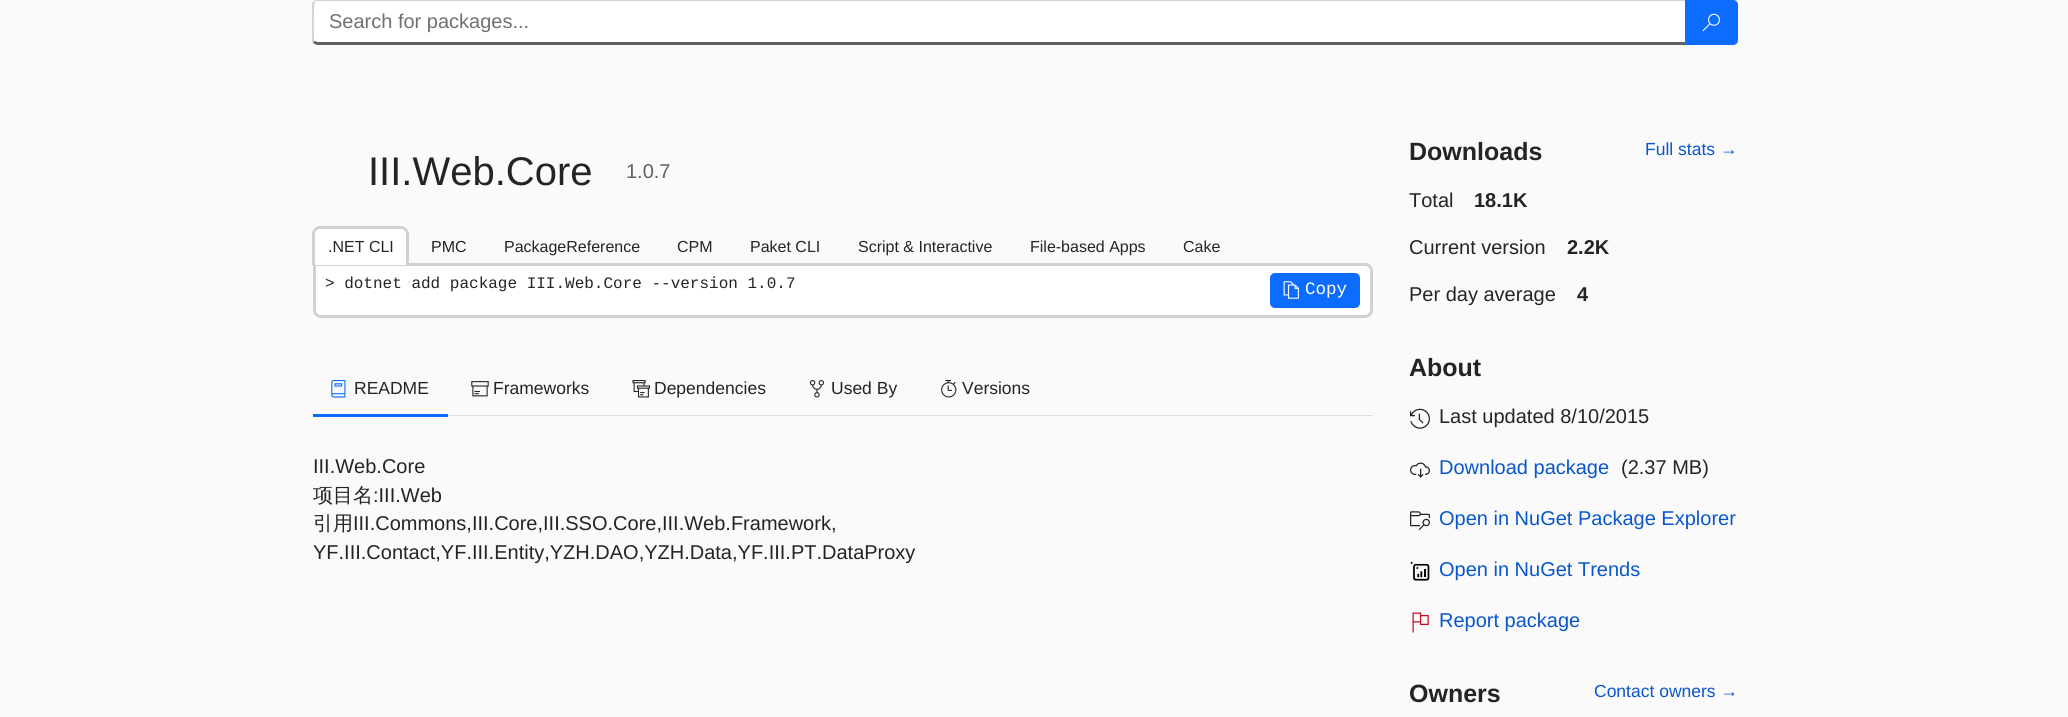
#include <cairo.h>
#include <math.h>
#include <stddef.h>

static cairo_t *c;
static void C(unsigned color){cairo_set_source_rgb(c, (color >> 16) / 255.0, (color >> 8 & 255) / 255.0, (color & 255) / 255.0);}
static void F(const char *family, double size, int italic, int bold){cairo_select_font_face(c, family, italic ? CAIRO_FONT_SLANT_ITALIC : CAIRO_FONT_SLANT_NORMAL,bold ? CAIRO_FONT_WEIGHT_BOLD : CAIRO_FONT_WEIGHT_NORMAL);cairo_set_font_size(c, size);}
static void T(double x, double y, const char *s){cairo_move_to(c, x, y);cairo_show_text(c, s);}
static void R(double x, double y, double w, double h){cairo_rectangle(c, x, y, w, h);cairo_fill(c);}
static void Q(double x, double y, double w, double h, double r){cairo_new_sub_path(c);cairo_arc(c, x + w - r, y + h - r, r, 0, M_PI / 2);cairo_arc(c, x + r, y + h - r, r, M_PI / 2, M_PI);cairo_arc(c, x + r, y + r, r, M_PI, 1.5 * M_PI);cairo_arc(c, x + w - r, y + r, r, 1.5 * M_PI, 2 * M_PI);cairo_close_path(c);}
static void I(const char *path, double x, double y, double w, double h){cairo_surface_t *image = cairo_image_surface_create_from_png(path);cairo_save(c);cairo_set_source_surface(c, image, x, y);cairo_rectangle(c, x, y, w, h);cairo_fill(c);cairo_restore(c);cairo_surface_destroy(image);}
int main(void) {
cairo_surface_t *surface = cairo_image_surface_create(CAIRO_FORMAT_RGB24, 2068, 717);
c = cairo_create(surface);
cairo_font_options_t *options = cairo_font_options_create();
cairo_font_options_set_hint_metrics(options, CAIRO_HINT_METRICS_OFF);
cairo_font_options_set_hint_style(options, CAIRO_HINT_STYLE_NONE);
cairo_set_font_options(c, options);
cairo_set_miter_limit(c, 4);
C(0xfafafa);
cairo_paint(c);
C(0xffffff);
cairo_new_path(c);
cairo_move_to(c,318,1);
cairo_line_to(c,1685,1);
cairo_line_to(c,1685,42);
cairo_line_to(c,318,42);
cairo_curve_to(c,315,42,314,41,314,40);
cairo_line_to(c,314,5);
cairo_curve_to(c,314,3,315,1,318,1);
cairo_close_path(c);
cairo_fill(c);
C(0xd1d1d1);
cairo_new_path(c);
cairo_move_to(c,318,0);
cairo_curve_to(c,316,0,315,0,314,1);
cairo_line_to(c,315,2);
cairo_curve_to(c,315,2,316,1,318,1);
cairo_line_to(c,1685,1);
cairo_line_to(c,1686,0);
cairo_close_path(c);
cairo_fill(c);
C(0x616161);
cairo_new_path(c);
cairo_move_to(c,318,45);
cairo_line_to(c,1686,45);
cairo_line_to(c,1685,42);
cairo_line_to(c,318,42);
cairo_line_to(c,314,41);
cairo_line_to(c,313,43);
cairo_curve_to(c,315,44,316,45,318,45);
cairo_close_path(c);
cairo_fill(c);
C(0xd1d1d1);
cairo_new_path(c);
cairo_move_to(c,312,3);
cairo_line_to(c,314,1);
cairo_line_to(c,315,2);
cairo_curve_to(c,313,5,314,40,314,41);
cairo_line_to(c,313,43);
cairo_line_to(c,312,42);
cairo_close_path(c);
cairo_fill(c);
F("Liberation Sans",20,0,0);
C(0x707070);
T(329,28,"Search for packages...");
C(0x0b6cff);
cairo_new_path(c);
cairo_move_to(c,1685,0);
cairo_line_to(c,1733,0);
cairo_curve_to(c,1736,0,1738,2,1738,5);
cairo_line_to(c,1738,40);
cairo_curve_to(c,1738,43,1736,45,1733,45);
cairo_line_to(c,1685,45);
cairo_close_path(c);
cairo_fill(c);
I("1.png",1702,13,18,19);
F("Liberation Sans",40,0,0);
C(0x242424);
T(368,185,"III.Web.Core");
F("Liberation Sans",20,0,0);
C(0x616161);
T(626,178,"1.0.7");
C(0xffffff);
cairo_new_path(c);
cairo_move_to(c,314.5,264.5);
cairo_line_to(c,1365,264.5);
cairo_curve_to(c,1368.5,264.5,1371.5,267.5,1371.5,271);
cairo_line_to(c,1371.5,310);
cairo_curve_to(c,1371.5,313.5,1368.5,316.5,1365,316.5);
cairo_line_to(c,321,316.5);
cairo_curve_to(c,317.5,316.5,314.5,313.5,314.5,310);
cairo_close_path(c);
cairo_fill_preserve(c);
C(0xd1d1d1);
cairo_set_line_width(c,3);
cairo_stroke(c);
C(0xffffff);
cairo_new_path(c);
cairo_move_to(c,321,226);
cairo_line_to(c,401,226);
cairo_curve_to(c,405.5,226,409,229.5,409,234);
cairo_line_to(c,409,265);
cairo_line_to(c,313,265);
cairo_line_to(c,313,234);
cairo_curve_to(c,313,229.5,316.5,226,321,226);
cairo_close_path(c);
cairo_fill(c);
C(0xd1d1d1);
cairo_set_fill_rule(c,CAIRO_FILL_RULE_EVEN_ODD);
cairo_new_path(c);
cairo_move_to(c,320,226);
cairo_line_to(c,401,226);
cairo_curve_to(c,405,226,409,230,409,234);
cairo_line_to(c,409,265);
cairo_line_to(c,312,265);
cairo_line_to(c,312,234);
cairo_curve_to(c,312,230,316,226,320,226);
cairo_close_path(c);
cairo_move_to(c,320,229);
cairo_line_to(c,401,229);
cairo_curve_to(c,404,229,406,231,406,234);
cairo_line_to(c,406,265);
cairo_line_to(c,315,265);
cairo_line_to(c,315,234);
cairo_curve_to(c,315,231,317,229,320,229);
cairo_close_path(c);
cairo_fill(c);
F("Liberation Sans",16,0,0);
C(0x242424);
T(328,252,".NET CLI");
T(431,252,"PMC");
T(504,252,"PackageReference");
T(677,252,"CPM");
T(750,252,"Paket CLI");
T(858,252,"Script & Interactive");
T(1030,252,"File-based Apps");
T(1183,252,"Cake");
F("Liberation Mono",16,0,0);
T(325,288,"> dotnet add package III.Web.Core --version 1.0.7");
C(0x0b6cff);
Q(1270,273,90,35,5);
cairo_fill(c);
I("2.png",1283,281,16,18);
F("Liberation Mono",17.5,0,0);
C(0xffffff);
T(1305,294,"Copy");
C(0xdddddd);
R(448,415,925,1);
C(0x0b6cff);
R(313,414,135,3);
I("3.png",331,380,15,18);
F("Liberation Sans",17.5,0,0);
C(0x242424);
T(354,394,"README");
I("4.png",471,381,18,16);
T(493,394,"Frameworks");
I("5.png",632,380,18,18);
T(654,394,"Dependencies");
I("6.png",809,380,15,18);
T(831,394,"Used By");
I("7.png",941,380,16,18);
T(962,394,"Versions");
F("Liberation Sans",20,0,0);
T(313,473,"III.Web.Core");
F("WenQuanYi Zen Hei Medium",20,0,0);
T(313,502,"项目名");
F("Liberation Sans",20,0,0);
T(373,502,":III.Web");
F("WenQuanYi Zen Hei Medium",20,0,0);
T(313,530,"引用");
F("Liberation Sans",20,0,0);
T(353,530,"III.Commons,III.Core,III.SSO.Core,III.Web.Framework,");
T(313,559,"YF.III.Contact,YF.III.Entity,YZH.DAO,YZH.Data,YF.III.PT.DataProxy");
F("Liberation Sans",25,0,1);
T(1409,160,"Downloads");
F("Liberation Sans",17.5,0,0);
C(0x0956cc);
T(1645,155,"Full stats →");
F("Liberation Sans",20,0,0);
C(0x242424);
T(1409,207,"Total");
F("Liberation Sans",20,0,1);
T(1474,207,"18.1K");
F("Liberation Sans",20,0,0);
T(1409,254,"Current version");
F("Liberation Sans",20,0,1);
T(1567,254,"2.2K");
F("Liberation Sans",20,0,0);
T(1409,301,"Per day average");
F("Liberation Sans",20,0,1);
T(1577,301,"4");
F("Liberation Sans",25,0,1);
T(1409,376,"About");
I("8.png",1410,408,20,21);
F("Liberation Sans",20,0,0);
T(1439,423,"Last updated 8/10/2015");
I("9.png",1410,462,20,16);
C(0x0956cc);
T(1439,474,"Download package");
C(0x242424);
T(1621,474,"(2.37 MB)");
I("10.png",1410,511,20,19);
C(0x0956cc);
T(1439,525,"Open in NuGet Package Explorer");
I("11.png",1410,561,20,20);
T(1439,576,"Open in NuGet Trends");
I("12.png",1412,612,17,21);
T(1439,627,"Report package");
F("Liberation Sans",25,0,1);
C(0x242424);
T(1409,702,"Owners");
F("Liberation Sans",17.5,0,0);
C(0x0956cc);
T(1594,697,"Contact owners →");
cairo_surface_write_to_png(surface, "o.png");
cairo_font_options_destroy(options);
cairo_destroy(c);
cairo_surface_destroy(surface);
return 0;
}
